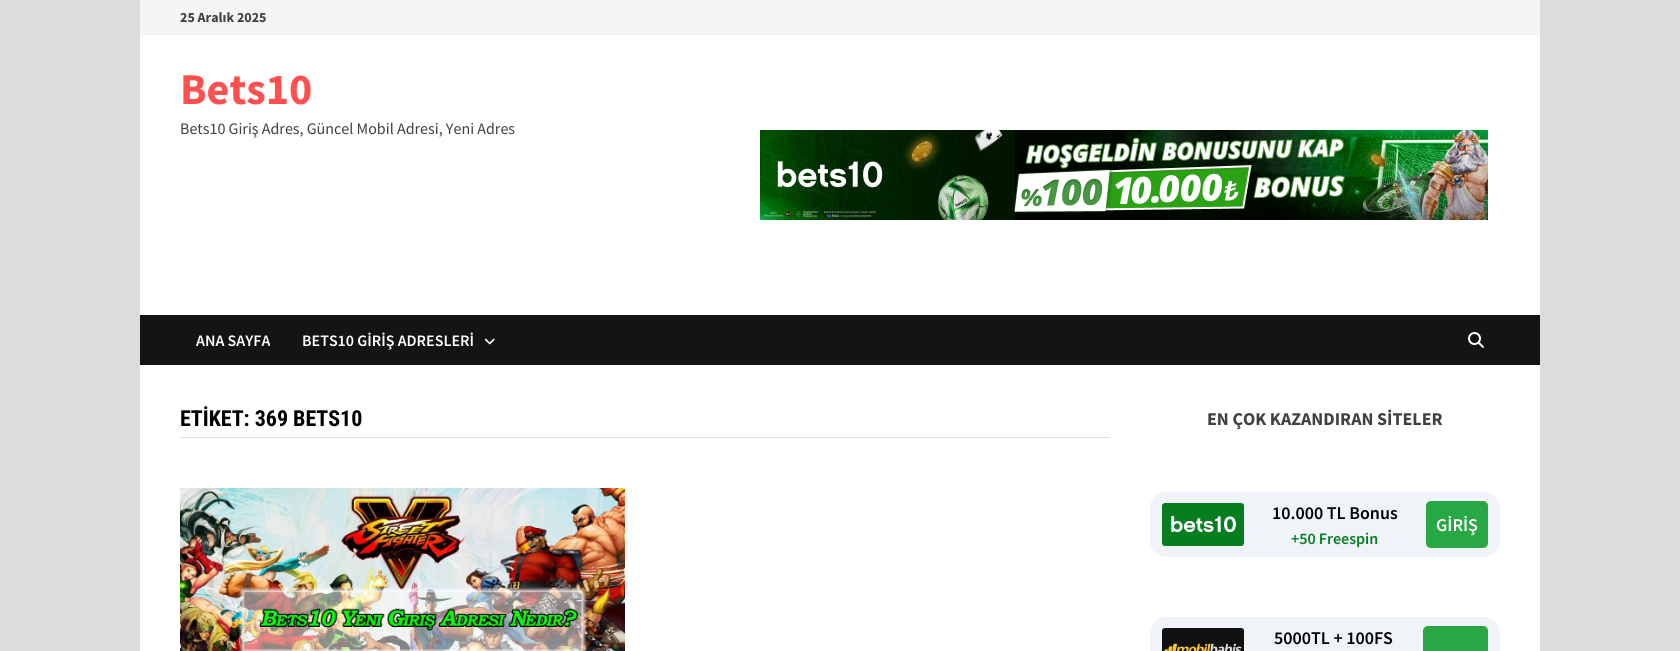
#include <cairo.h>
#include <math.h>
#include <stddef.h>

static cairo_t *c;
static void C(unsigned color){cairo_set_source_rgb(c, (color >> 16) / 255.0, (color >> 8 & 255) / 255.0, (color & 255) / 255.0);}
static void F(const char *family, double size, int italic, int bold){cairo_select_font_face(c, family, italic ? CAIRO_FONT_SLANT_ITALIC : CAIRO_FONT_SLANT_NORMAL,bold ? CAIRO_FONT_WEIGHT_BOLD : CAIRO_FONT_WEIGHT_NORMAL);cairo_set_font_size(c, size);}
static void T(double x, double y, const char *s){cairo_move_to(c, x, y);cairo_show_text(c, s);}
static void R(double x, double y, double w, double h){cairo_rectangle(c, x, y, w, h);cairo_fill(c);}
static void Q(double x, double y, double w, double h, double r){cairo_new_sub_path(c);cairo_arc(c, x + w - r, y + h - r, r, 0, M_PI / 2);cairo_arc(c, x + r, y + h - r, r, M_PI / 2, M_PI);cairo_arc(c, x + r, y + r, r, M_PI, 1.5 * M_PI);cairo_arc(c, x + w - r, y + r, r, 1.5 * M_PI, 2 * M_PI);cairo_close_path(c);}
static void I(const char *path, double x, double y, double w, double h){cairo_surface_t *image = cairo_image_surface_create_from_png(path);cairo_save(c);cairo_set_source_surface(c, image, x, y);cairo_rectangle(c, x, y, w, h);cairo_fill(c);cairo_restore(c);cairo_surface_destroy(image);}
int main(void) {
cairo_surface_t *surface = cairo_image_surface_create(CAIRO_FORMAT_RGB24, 1680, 651);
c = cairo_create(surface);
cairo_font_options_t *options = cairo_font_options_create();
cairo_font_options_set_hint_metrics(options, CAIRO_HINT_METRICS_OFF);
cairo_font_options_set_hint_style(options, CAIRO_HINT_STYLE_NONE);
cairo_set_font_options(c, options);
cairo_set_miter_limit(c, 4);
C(0xdddddd);
cairo_paint(c);
C(0xffffff);
R(140,35,1400,616);
C(0xf5f5f5);
R(140,0,1400,34);
C(0xeeeeee);
R(140,34,1400,1);
F("Source Sans Pro",14,0,1);
C(0x404040);
T(180,22,"25 Aralık 2025");
F("Source Sans Pro",44,0,1);
C(0xff4f4f);
T(180,104,"Bets10");
F("Source Sans Pro",16,0,0);
C(0x404040);
T(180,134,"Bets10 Giriş Adres, Güncel Mobil Adresi, Yeni Adres");
I("1.png",760,130,728,90);
C(0x141414);
R(140,315,1400,50);
F("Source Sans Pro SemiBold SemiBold",16,0,0);
C(0xffffff);
T(196,346,"ANA SAYFA");
T(302,346,"BETS10 GİRİŞ ADRESLERİ");
I("2.png",484,338,11,7);
I("3.png",1468,332,16,16);
C(0xdddddd);
R(180,437,930,1);
F("Roboto Condensed",22,0,1);
C(0x000000);
T(180,426,"ETİKET: 369 BETS10");
I("4.png",180,488,445,163);
F("Source Sans Pro",18,0,1);
C(0x404040);
T(1207,425,"EN ÇOK KAZANDIRAN SİTELER");
C(0xf0f3f7);
Q(1150,492,350,65,16);
cairo_fill(c);
I("5.png",1162,503,82,43);
F("Source Sans Pro SemiBold SemiBold",18,0,0);
C(0x000000);
T(1272,519,"10.000 TL Bonus");
F("Source Sans Pro SemiBold SemiBold",16,0,0);
C(0x057e20);
T(1291,544,"+50 Freespin");
C(0x28a745);
Q(1426,501,62,47,5);
cairo_fill(c);
F("Source Sans Pro SemiBold SemiBold",18,0,0);
C(0xffffff);
T(1436,531,"GİRİŞ");
C(0xf0f3f7);
Q(1150,617,350,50,16);
cairo_fill(c);
I("6.png",1162,628,82,23);
C(0x000000);
T(1274,644,"5000TL + 100FS");
C(0x28a745);
Q(1423,626,65,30,5);
cairo_fill(c);
cairo_surface_write_to_png(surface, "o.png");
cairo_font_options_destroy(options);
cairo_destroy(c);
cairo_surface_destroy(surface);
return 0;
}
